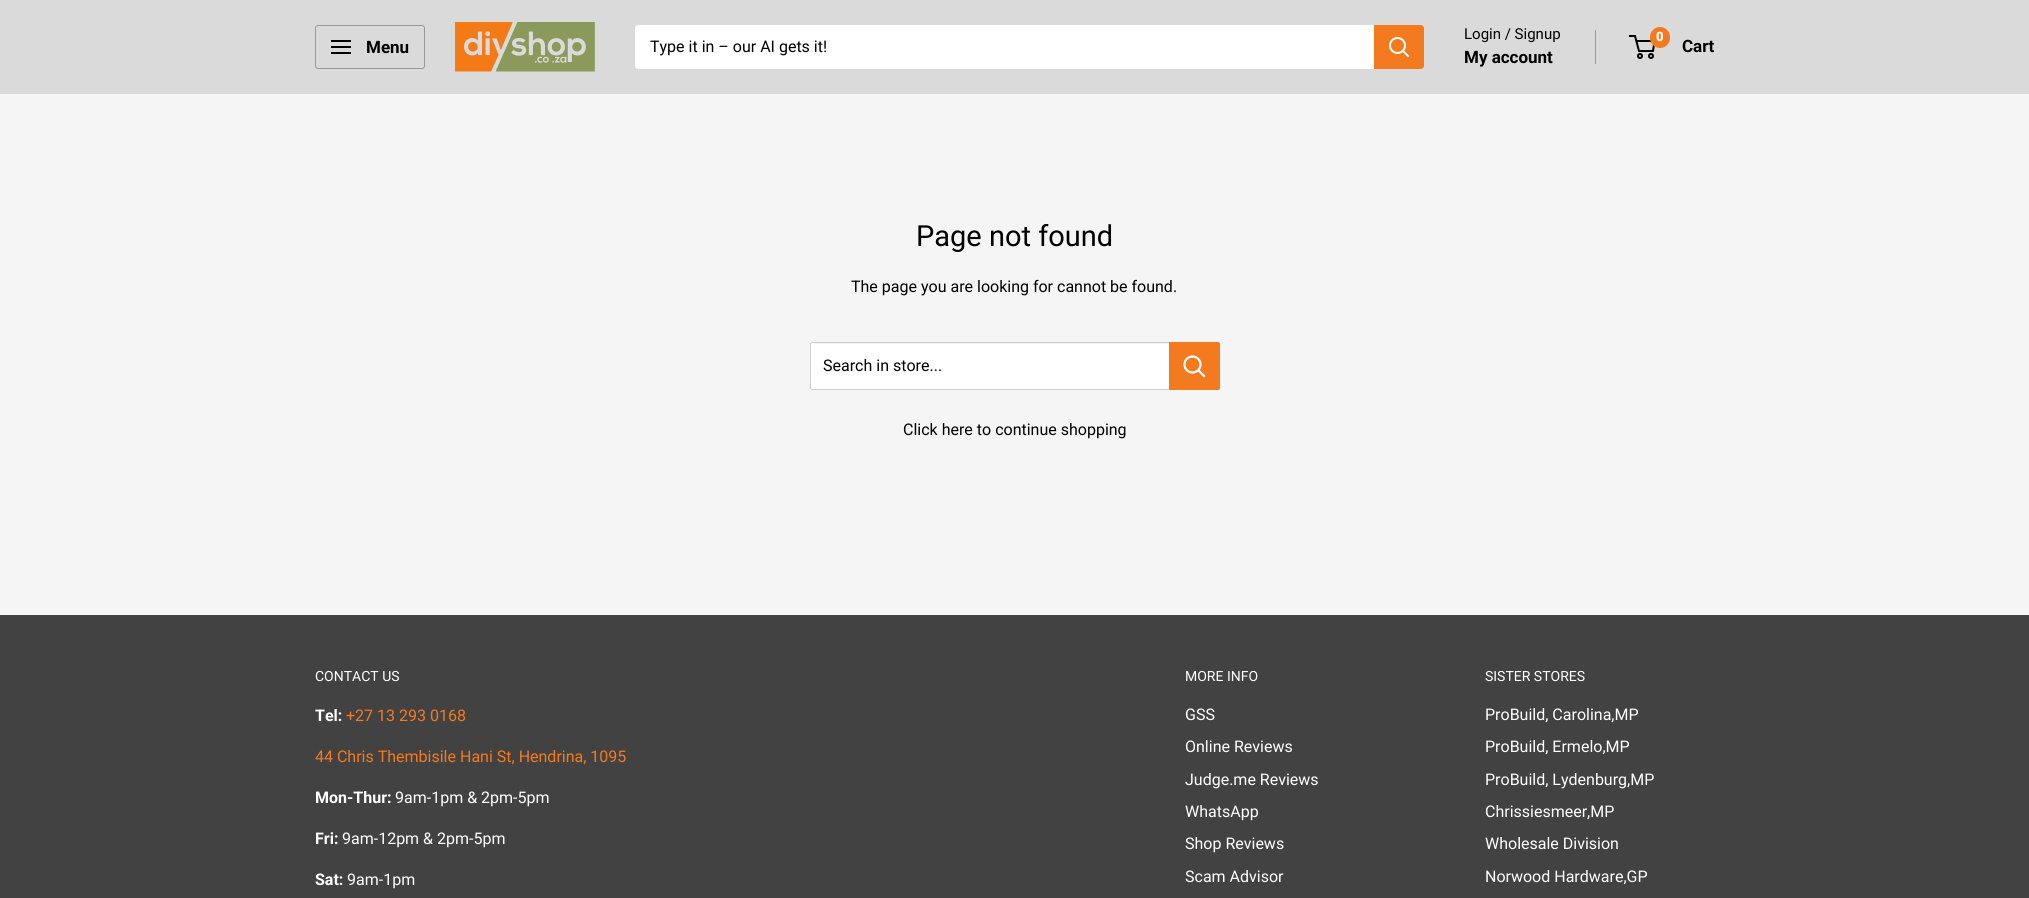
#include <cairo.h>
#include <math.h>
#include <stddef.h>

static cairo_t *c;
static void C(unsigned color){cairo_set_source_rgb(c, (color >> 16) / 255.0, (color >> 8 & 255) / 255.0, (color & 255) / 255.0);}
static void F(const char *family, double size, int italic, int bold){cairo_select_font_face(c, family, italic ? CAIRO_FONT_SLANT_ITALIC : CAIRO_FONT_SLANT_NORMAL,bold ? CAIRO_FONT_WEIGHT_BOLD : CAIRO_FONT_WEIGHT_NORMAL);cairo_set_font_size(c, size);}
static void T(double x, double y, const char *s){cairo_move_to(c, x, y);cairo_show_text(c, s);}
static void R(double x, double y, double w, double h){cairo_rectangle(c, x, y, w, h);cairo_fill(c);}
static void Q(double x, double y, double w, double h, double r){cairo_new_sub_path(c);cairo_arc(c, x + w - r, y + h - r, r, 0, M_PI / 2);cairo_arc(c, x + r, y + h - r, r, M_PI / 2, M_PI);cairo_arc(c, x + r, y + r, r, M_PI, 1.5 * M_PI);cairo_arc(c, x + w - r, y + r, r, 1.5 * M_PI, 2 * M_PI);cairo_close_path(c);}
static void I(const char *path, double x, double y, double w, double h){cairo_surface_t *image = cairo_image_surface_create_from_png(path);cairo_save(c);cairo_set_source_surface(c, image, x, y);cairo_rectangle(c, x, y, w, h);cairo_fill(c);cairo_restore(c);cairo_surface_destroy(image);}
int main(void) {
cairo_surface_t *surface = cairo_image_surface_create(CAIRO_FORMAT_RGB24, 2029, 898);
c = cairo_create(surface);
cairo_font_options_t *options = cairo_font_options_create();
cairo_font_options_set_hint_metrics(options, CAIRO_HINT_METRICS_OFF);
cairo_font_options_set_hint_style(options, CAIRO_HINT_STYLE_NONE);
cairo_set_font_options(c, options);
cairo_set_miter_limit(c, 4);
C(0xf5f5f5);
cairo_paint(c);
C(0xdadada);
R(0,0,2029,94);
Q(315.5,25.5,109,43,2.5);
C(0x999999);
cairo_set_line_width(c,1);
cairo_stroke(c);
I("1.png",331,40,20,14);
F("Roboto",17,0,1);
C(0x000000);
T(366,53,"Menu");
I("2.png",455,22,140,50);
C(0xffffff);
Q(635,25,789,44,3);
cairo_fill(c);
F("Roboto",16,0,0);
C(0x000000);
T(650,52,"Type it in – our AI gets it!");
C(0xf37a1f);
cairo_new_path(c);
cairo_move_to(c,1374,25);
cairo_line_to(c,1421,25);
cairo_curve_to(c,1422.5,25,1424,26.5,1424,28);
cairo_line_to(c,1424,66);
cairo_curve_to(c,1424,67.5,1422.5,69,1421,69);
cairo_line_to(c,1374,69);
cairo_close_path(c);
cairo_fill(c);
cairo_new_path(c);
cairo_move_to(c,1408,56);
cairo_line_to(c,1403,51);
C(0xffffff);
cairo_set_line_width(c,2);
cairo_set_line_cap(c,CAIRO_LINE_CAP_SQUARE);
cairo_stroke(c);
cairo_arc(c,1397.5,45.5,7.5,0,2 * M_PI);
cairo_set_line_cap(c,CAIRO_LINE_CAP_BUTT);
cairo_stroke(c);
F("Roboto",15,0,0);
C(0x000000);
T(1464,39,"Login / Signup");
C(0x999999);
R(1595,30,1,34);
F("Roboto",17,0,1);
C(0x000000);
T(1464,63,"My account");
cairo_new_path(c);
cairo_arc(c,1640,56,2,0,2 * M_PI);
cairo_stroke(c);
cairo_arc(c,1651,56,2,0,2 * M_PI);
cairo_stroke(c);
cairo_new_path(c);
cairo_move_to(c,1636.5,41);
cairo_line_to(c,1654.5,41);
cairo_line_to(c,1653,51);
cairo_line_to(c,1639,51);
cairo_line_to(c,1635,36);
cairo_line_to(c,1629,36);
cairo_stroke(c);
C(0xf37a1f);
Q(1650,27,20,21,10);
cairo_fill(c);
F("Roboto Black",13,0,0);
C(0xffffff);
T(1656,41,"0");
F("Roboto",17,0,1);
C(0x000000);
T(1682,52,"Cart");
F("Roboto",29,0,0);
T(916,246,"Page not found");
F("Roboto",16,0,0);
T(851,292,"The page you are looking for cannot be found.");
C(0xffffff);
cairo_new_path(c);
cairo_move_to(c,812,342);
cairo_line_to(c,1169,342);
cairo_line_to(c,1169,390);
cairo_line_to(c,812,390);
cairo_curve_to(c,811,390,810,389,810,388);
cairo_line_to(c,810,344);
cairo_curve_to(c,810,343,811,342,812,342);
cairo_close_path(c);
cairo_fill(c);
C(0xf6f6f6);
cairo_new_path(c);
cairo_move_to(c,812,344);
cairo_line_to(c,1169,344);
cairo_line_to(c,1169,343);
cairo_line_to(c,812,343);
cairo_curve_to(c,811,343,811,344,811,345);
cairo_curve_to(c,811,344,811,344,812,344);
cairo_close_path(c);
cairo_fill(c);
C(0xcdcdcd);
R(811,342,358,1);
R(811,389,358,1);
R(810,343,1,46);
C(0x000000);
T(823,371,"Search in store...");
C(0xf37a1f);
cairo_new_path(c);
cairo_move_to(c,1169,342);
cairo_line_to(c,1218,342);
cairo_curve_to(c,1219,342,1220,343,1220,344);
cairo_line_to(c,1220,388);
cairo_curve_to(c,1220,389,1219,390,1218,390);
cairo_line_to(c,1169,390);
cairo_close_path(c);
cairo_fill(c);
cairo_new_path(c);
cairo_move_to(c,1204,376);
cairo_line_to(c,1198.5,370.5);
C(0xffffff);
cairo_set_line_width(c,2.2);
cairo_set_line_cap(c,CAIRO_LINE_CAP_SQUARE);
cairo_stroke(c);
cairo_arc(c,1192.5,364.5,8,0,2 * M_PI);
cairo_set_line_cap(c,CAIRO_LINE_CAP_BUTT);
cairo_stroke(c);
C(0x000000);
T(903,435,"Click here to continue shopping");
C(0x424242);
R(0,615,2029,283);
F("Roboto",14,0,0);
C(0xffffff);
T(315,681,"CONTACT US");
F("Roboto",16,0,1);
T(315,721,"Tel:");
F("Roboto",16,0,0);
C(0xf37a1f);
T(346,721,"+27 13 293 0168");
T(315,762,"44 Chris Thembisile Hani St, Hendrina, 1095");
F("Roboto",16,0,1);
C(0xffffff);
T(315,803,"Mon-Thur:");
F("Roboto",16,0,0);
T(395,803,"9am-1pm & 2pm-5pm");
F("Roboto",16,0,1);
T(315,844,"Fri:");
F("Roboto",16,0,0);
T(342,844,"9am-12pm & 2pm-5pm");
F("Roboto",16,0,1);
T(315,885,"Sat:");
F("Roboto",16,0,0);
T(347,885,"9am-1pm");
F("Roboto",14,0,0);
T(1185,681,"MORE INFO");
F("Roboto",16,0,0);
T(1185,720,"GSS");
T(1185,752,"Online Reviews");
T(1185,785,"Judge.me Reviews");
T(1185,817,"WhatsApp");
T(1185,849,"Shop Reviews");
T(1185,882,"Scam Advisor");
F("Roboto",14,0,0);
T(1485,681,"SISTER STORES");
F("Roboto",16,0,0);
T(1485,720,"ProBuild, Carolina,MP");
T(1485,752,"ProBuild, Ermelo,MP");
T(1485,785,"ProBuild, Lydenburg,MP");
T(1485,817,"Chrissiesmeer,MP");
T(1485,849,"Wholesale Division");
T(1485,882,"Norwood Hardware,GP");
cairo_surface_write_to_png(surface, "o.png");
cairo_font_options_destroy(options);
cairo_destroy(c);
cairo_surface_destroy(surface);
return 0;
}
